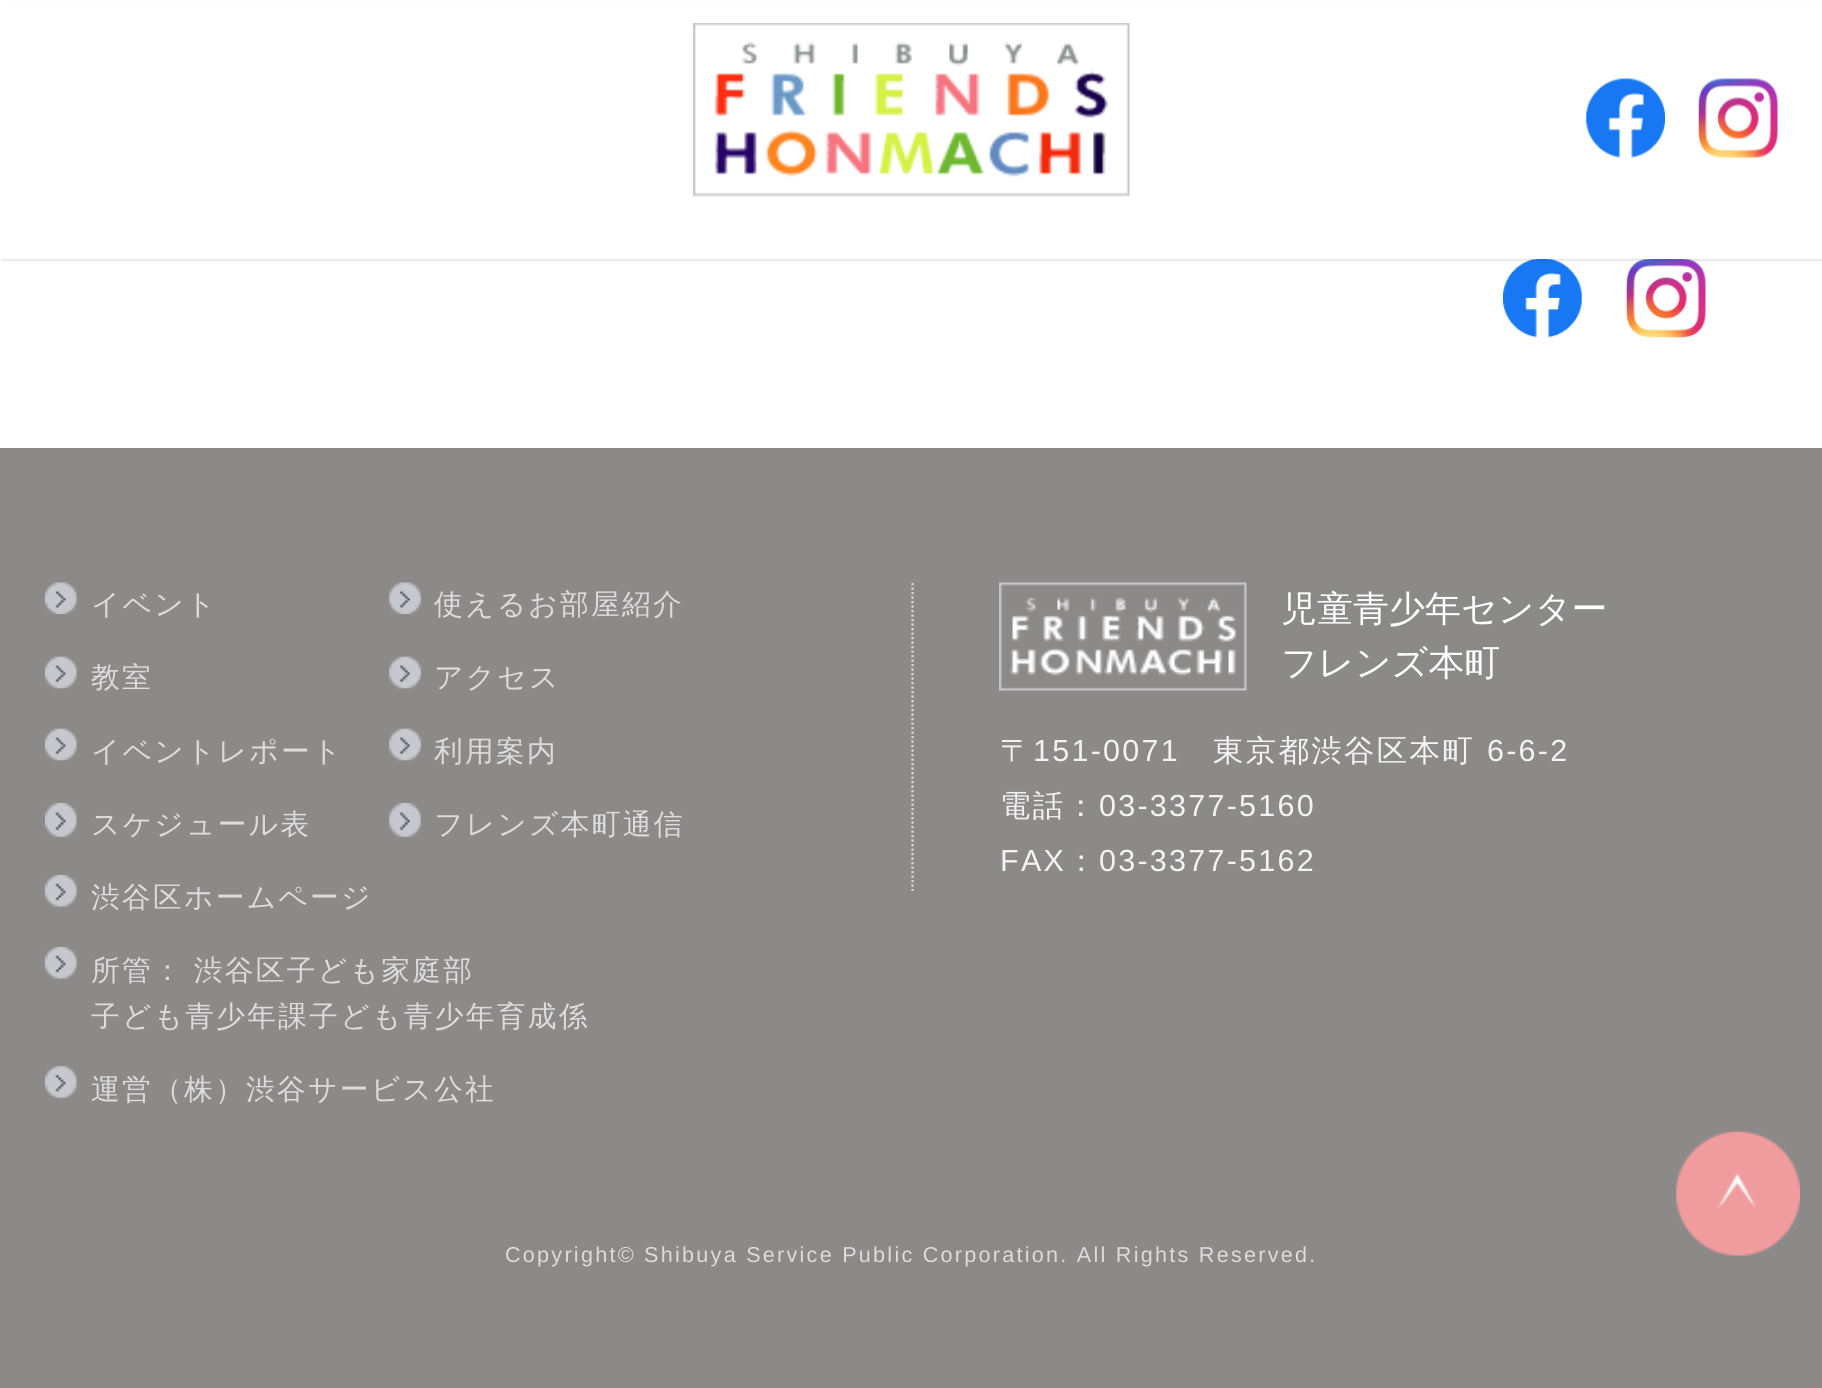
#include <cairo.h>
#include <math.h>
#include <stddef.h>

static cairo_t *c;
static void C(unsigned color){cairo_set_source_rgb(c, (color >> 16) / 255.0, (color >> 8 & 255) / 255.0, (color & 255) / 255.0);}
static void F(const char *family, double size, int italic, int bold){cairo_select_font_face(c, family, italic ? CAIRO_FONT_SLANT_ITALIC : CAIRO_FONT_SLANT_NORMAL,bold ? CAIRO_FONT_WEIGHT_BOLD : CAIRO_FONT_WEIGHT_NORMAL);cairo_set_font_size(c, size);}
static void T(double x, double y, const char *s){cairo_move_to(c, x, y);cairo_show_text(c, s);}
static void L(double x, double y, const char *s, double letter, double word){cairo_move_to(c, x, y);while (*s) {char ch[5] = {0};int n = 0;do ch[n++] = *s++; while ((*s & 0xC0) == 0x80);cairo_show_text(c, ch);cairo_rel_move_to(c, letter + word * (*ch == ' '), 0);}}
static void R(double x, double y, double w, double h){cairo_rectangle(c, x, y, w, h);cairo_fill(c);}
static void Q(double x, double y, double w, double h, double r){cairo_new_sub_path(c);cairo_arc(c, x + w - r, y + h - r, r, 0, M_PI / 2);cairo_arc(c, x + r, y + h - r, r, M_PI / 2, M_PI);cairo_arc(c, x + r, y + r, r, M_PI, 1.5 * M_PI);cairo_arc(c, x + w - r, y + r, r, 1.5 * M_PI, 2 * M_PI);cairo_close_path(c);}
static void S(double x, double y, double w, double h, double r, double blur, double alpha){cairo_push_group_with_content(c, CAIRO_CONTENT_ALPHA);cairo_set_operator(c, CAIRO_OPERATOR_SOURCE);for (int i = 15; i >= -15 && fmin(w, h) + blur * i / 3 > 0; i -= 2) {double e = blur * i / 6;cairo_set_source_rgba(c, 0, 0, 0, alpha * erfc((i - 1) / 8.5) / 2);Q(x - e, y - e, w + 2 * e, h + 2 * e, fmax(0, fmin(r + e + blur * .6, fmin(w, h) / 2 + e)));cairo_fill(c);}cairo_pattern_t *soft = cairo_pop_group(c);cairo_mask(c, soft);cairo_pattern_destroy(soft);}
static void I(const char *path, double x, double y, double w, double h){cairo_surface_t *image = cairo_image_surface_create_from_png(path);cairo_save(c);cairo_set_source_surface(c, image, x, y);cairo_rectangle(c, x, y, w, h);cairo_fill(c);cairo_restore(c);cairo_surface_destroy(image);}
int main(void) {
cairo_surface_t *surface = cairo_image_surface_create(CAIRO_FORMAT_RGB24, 1822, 1388);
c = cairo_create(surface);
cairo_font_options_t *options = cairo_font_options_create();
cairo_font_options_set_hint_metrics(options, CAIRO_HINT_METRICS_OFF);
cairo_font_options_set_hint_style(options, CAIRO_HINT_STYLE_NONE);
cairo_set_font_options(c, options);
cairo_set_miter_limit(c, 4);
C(0xffffff);
cairo_paint(c);
I("4.png",1503,259,79,79);
I("5.png",1626,259,80,79);
C(0x000000);
S(2,2,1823,259,0,1,.1);
C(0xffffff);
R(1,1,1821,258);
I("1.png",693,23,437,174);
I("2.png",1586,78,79,80);
I("3.png",1698,78,80,80);
C(0x8c8989);
R(0,448,1822,940);
I("6.png",45,582,32,32);
F("WenQuanYi Zen Hei Medium",28.75,0,0);
C(0xdcdcdc);
L(91,614,"イベント",2.25,0);
I("7.png",45,656,32,33);
L(91,687,"教室",2.25,0);
I("7.png",45,728,32,33);
L(91,761,"イベントレポート",2.25,0);
I("8.png",45,803,32,34);
L(91,834,"スケジュール表",2.25,0);
I("9.png",389,582,32,32);
L(434,614,"使えるお部屋紹介",2.25,0);
I("10.png",389,656,32,33);
L(434,687,"アクセス",2.25,0);
I("10.png",389,728,32,33);
L(434,761,"利用案内",2.25,0);
I("11.png",389,803,32,34);
L(434,834,"フレンズ本町通信",2.25,0);
I("12.png",45,875,32,32);
L(91,907,"渋谷区ホームページ",2.25,0);
I("12.png",45,947,32,32);
L(91,980,"所管： 渋谷区子ども家庭部",2.25,-1);
L(91,1026,"子ども青少年課子ども青少年育成係",2.25,0);
I("13.png",45,1066,32,32);
L(91,1099,"運営（株）渋谷サービス公社",2.25,0);
cairo_new_path(c);
cairo_move_to(c,912.5,583);
cairo_line_to(c,912.5,891);
C(0xdadada);
cairo_set_line_width(c,2.2);
cairo_set_dash(c,(double[]){2.25,2.25},2,0);
cairo_stroke(c);
I("14.png",999,582,248,109);
F("WenQuanYi Zen Hei Medium",36,0,0);
C(0xffffff);
T(1281,621,"児童青少年センター");
T(1281,675,"フレンズ本町");
F("WenQuanYi Zen Hei Medium",30.5,0,0);
C(0xf3f3f3);
L(1000,761,"〒",2.25,0);
F("Liberation Sans",30.5,0,0);
L(1033,761,"151-0071",2.25,0);
F("WenQuanYi Zen Hei Medium",30.5,0,0);
L(1213,761,"東京都渋谷区本町",2.25,0);
F("Liberation Sans",30.5,0,0);
L(1487,761,"6-6-2",2.25,0);
F("WenQuanYi Zen Hei Medium",30.5,0,0);
L(1000,816,"電話：",2.25,0);
F("Liberation Sans",30.5,0,0);
L(1099,816,"03-3377-5160",2.25,0);
L(1000,871,"FAX",2.25,0);
F("WenQuanYi Zen Hei Medium",30.5,0,0);
L(1066,871,"：",2.25,0);
F("Liberation Sans",30.5,0,0);
L(1099,871,"03-3377-5162",2.25,0);
F("Liberation Sans",21.6,0,0);
C(0xdcdcdc);
L(505,1262,"Copyright© Shibuya Service Public Corporation. All Rights Reserved.",2.25,0);
I("15.png",1676,1131,124,125);
cairo_surface_write_to_png(surface, "o.png");
cairo_font_options_destroy(options);
cairo_destroy(c);
cairo_surface_destroy(surface);
return 0;
}
